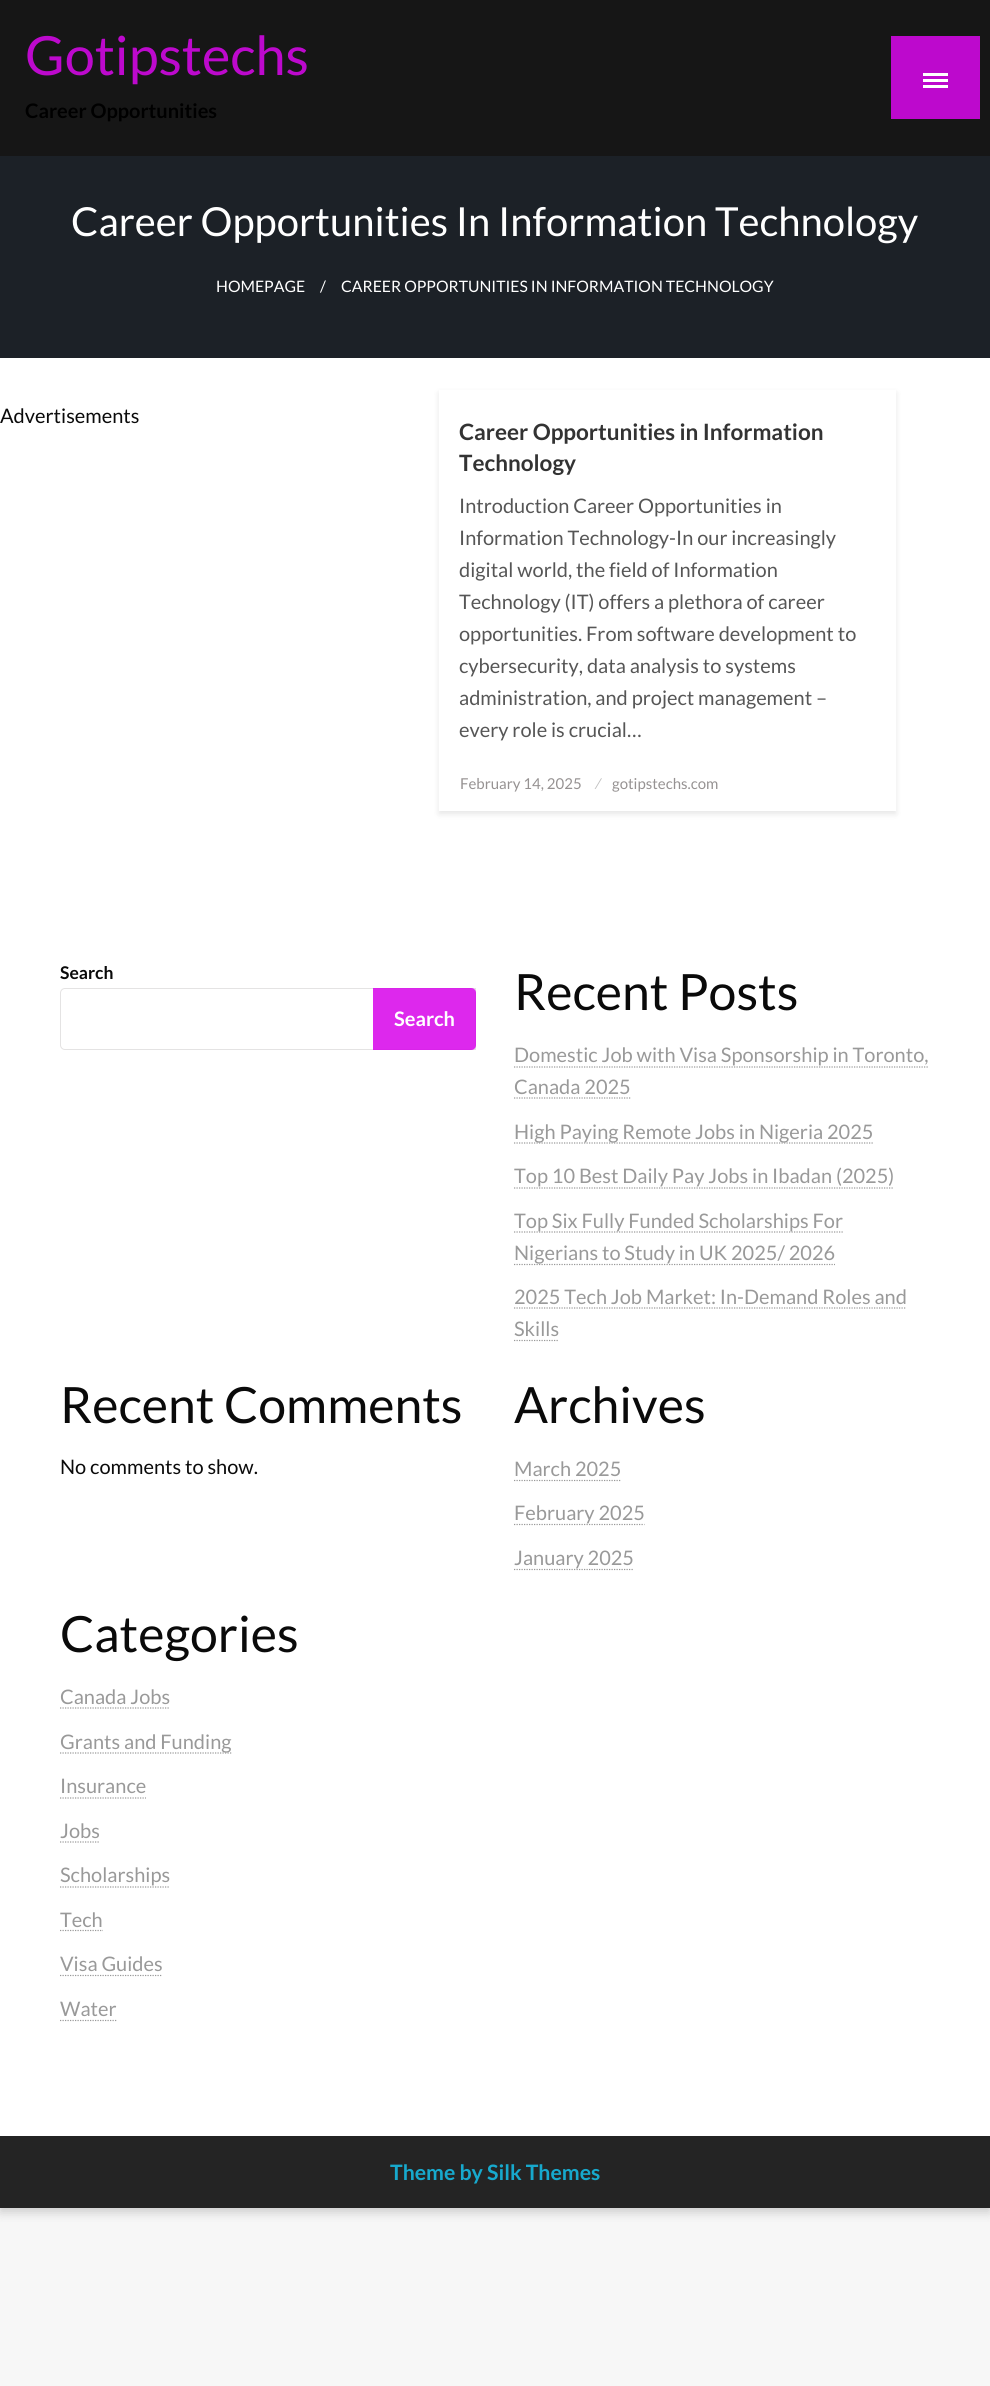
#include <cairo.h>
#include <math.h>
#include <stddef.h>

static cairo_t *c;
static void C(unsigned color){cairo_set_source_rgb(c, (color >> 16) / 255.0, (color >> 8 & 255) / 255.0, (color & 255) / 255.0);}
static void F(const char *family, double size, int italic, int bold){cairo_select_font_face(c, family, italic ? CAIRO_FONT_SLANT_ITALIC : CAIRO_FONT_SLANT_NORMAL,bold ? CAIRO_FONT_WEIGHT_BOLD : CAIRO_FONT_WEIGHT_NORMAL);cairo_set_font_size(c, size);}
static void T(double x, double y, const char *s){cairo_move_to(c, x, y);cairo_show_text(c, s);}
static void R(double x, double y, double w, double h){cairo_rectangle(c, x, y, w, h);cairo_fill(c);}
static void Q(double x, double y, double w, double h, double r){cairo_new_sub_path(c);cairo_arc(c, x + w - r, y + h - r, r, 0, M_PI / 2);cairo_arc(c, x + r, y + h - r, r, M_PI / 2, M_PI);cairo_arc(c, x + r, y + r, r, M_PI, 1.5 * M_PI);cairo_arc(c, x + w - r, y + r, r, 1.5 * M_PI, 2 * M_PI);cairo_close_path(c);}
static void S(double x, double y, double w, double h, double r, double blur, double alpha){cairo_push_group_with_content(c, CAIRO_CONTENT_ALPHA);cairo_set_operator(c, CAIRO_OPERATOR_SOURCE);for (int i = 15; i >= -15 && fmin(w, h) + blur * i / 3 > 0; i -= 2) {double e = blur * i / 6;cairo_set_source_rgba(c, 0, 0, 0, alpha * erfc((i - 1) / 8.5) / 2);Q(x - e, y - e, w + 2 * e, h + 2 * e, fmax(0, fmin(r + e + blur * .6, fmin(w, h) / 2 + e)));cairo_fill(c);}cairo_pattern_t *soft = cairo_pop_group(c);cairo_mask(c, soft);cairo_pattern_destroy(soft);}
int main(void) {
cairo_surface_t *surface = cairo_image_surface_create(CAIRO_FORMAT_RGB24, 990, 2386);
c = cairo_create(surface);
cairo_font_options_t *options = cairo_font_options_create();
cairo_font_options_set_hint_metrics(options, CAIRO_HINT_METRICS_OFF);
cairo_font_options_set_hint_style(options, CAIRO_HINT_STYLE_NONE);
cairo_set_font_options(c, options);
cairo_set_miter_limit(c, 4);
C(0xf7f7f7);
cairo_paint(c);
C(0x000000);
S(0,4,990,2207,0,6,.09);
S(0,5,990,2208,0,5,.1);
C(0x161616);
R(0,0,990,156);
F("Lato",54,0,0);
C(0xbd09cd);
T(25,75,"Gotipstechs");
F("Lato",20,0,1);
C(0x000000);
T(25,118,"Career Opportunities");
C(0xbd09cd);
R(891,36,89,83);
C(0xffffff);
R(923,73,25,3);
R(923,79,25,3);
R(923,85,25,3);
R(0,358,990,1778);
C(0x1c2127);
R(0,156,990,202);
F("Lato",40,0,0);
C(0xffffff);
T(71,236,"Career Opportunities In Information Technology");
F("Lato",15.75,0,0);
T(216,292,"HOMEPAGE");
T(320,292,"/");
T(341,292,"CAREER OPPORTUNITIES IN INFORMATION TECHNOLOGY");
F("Lato",20,0,0);
C(0x0a0a0a);
T(0,423,"Advertisements");
cairo_save(c);
cairo_set_fill_rule(c,CAIRO_FILL_RULE_EVEN_ODD);
cairo_new_path(c);
cairo_move_to(c,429,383);
cairo_line_to(c,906,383);
cairo_line_to(c,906,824);
cairo_line_to(c,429,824);
cairo_close_path(c);
cairo_move_to(c,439,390);
cairo_line_to(c,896,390);
cairo_line_to(c,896,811);
cairo_line_to(c,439,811);
cairo_close_path(c);
cairo_clip(c);
C(0x000000);
S(439,393,457,421,0,3,.1);
cairo_restore(c);
F("Lato",22.5,0,1);
C(0x333333);
T(459,440,"Career Opportunities in Information");
T(459,471,"Technology");
F("Lato",20,0,0);
C(0x565656);
T(459,513,"Introduction Career Opportunities in");
T(459,545,"Information Technology-In our increasingly");
T(459,577,"digital world, the field of Information");
T(459,609,"Technology (IT) offers a plethora of career");
T(459,641,"opportunities. From software development to");
T(459,673,"cybersecurity, data analysis to systems");
T(459,705,"administration, and project management –");
T(459,737,"every role is crucial…");
F("Lato",15,0,0);
C(0x969292);
T(460,789,"February 14, 2025");
C(0xc0c0c0);
T(596,789,"⁄");
C(0x969292);
T(612,789,"gotipstechs.com");
F("Lato",17.5,0,1);
C(0x0a0a0a);
T(60,979,"Search");
cairo_new_path(c);
cairo_move_to(c,65,988.5);
cairo_line_to(c,475.5,988.5);
cairo_line_to(c,475.5,1049.5);
cairo_line_to(c,65,1049.5);
cairo_curve_to(c,62.5,1049.5,60.5,1047.5,60.5,1045);
cairo_line_to(c,60.5,993);
cairo_curve_to(c,60.5,990.5,62.5,988.5,65,988.5);
cairo_close_path(c);
C(0xe4e3e3);
cairo_set_line_width(c,1);
cairo_stroke(c);
cairo_set_source_rgba(c,0.847,0.027,0.922,0.86);
cairo_new_path(c);
cairo_move_to(c,373,988);
cairo_line_to(c,471,988);
cairo_curve_to(c,474,988,476,990,476,993);
cairo_line_to(c,476,1045);
cairo_curve_to(c,476,1048,474,1050,471,1050);
cairo_line_to(c,373,1050);
cairo_close_path(c);
cairo_fill(c);
F("Lato",20,0,1);
C(0xffffff);
T(394,1026,"Search");
F("Lato",50,0,0);
C(0x0a0a0a);
T(514,1010,"Recent Posts");
F("Lato",20,0,0);
C(0x999999);
T(514,1062,"Domestic Job with Visa Sponsorship in Toronto,");
cairo_new_path(c);
cairo_move_to(c,514,1067);
cairo_line_to(c,928.5,1067);
cairo_set_line_width(c,1.2);
cairo_set_dash(c,(double[]){1.25,1.25},2,0);
cairo_stroke(c);
T(514,1094,"Canada 2025");
cairo_new_path(c);
cairo_move_to(c,514,1098);
cairo_line_to(c,630.5,1098);
cairo_stroke(c);
cairo_new_path(c);
cairo_move_to(c,514,1143);
cairo_line_to(c,873,1143);
cairo_stroke(c);
T(514,1139,"High Paying Remote Jobs in Nigeria 2025");
T(514,1183,"Top 10 Best Daily Pay Jobs in Ibadan (2025)");
cairo_new_path(c);
cairo_move_to(c,514,1188);
cairo_line_to(c,894,1188);
cairo_stroke(c);
cairo_new_path(c);
cairo_move_to(c,514,1232);
cairo_line_to(c,843,1232);
cairo_stroke(c);
T(514,1228,"Top Six Fully Funded Scholarships For");
cairo_new_path(c);
cairo_move_to(c,514,1264.5);
cairo_line_to(c,835,1264.5);
cairo_stroke(c);
T(514,1260,"Nigerians to Study in UK 2025/ 2026");
T(514,1304,"2025 Tech Job Market: In-Demand Roles and");
cairo_new_path(c);
cairo_move_to(c,514,1308);
cairo_line_to(c,906.5,1308);
cairo_stroke(c);
T(514,1336,"Skills");
cairo_new_path(c);
cairo_move_to(c,514,1340.5);
cairo_line_to(c,559,1340.5);
cairo_stroke(c);
F("Lato",50,0,0);
C(0x0a0a0a);
T(60,1423,"Recent Comments");
F("Lato",20,0,0);
T(60,1474,"No comments to show.");
F("Lato",50,0,0);
T(514,1423,"Archives");
F("Lato",20,0,0);
C(0x999999);
T(514,1476,"March 2025");
cairo_new_path(c);
cairo_move_to(c,514,1480.5);
cairo_line_to(c,621,1480.5);
cairo_stroke(c);
cairo_new_path(c);
cairo_move_to(c,514,1524.5);
cairo_line_to(c,644.5,1524.5);
cairo_stroke(c);
T(514,1520,"February 2025");
cairo_new_path(c);
cairo_move_to(c,514,1569.5);
cairo_line_to(c,633.5,1569.5);
cairo_stroke(c);
T(514,1565,"January 2025");
F("Lato",50,0,0);
C(0x0a0a0a);
T(60,1652,"Categories");
F("Lato",20,0,0);
C(0x999999);
T(60,1704,"Canada Jobs");
cairo_new_path(c);
cairo_move_to(c,60,1708);
cairo_line_to(c,170,1708);
cairo_stroke(c);
cairo_new_path(c);
cairo_move_to(c,60,1753);
cairo_line_to(c,231.5,1753);
cairo_stroke(c);
T(60,1749,"Grants and Funding");
T(60,1793,"Insurance");
cairo_new_path(c);
cairo_move_to(c,60,1798);
cairo_line_to(c,146,1798);
cairo_stroke(c);
T(60,1838,"Jobs");
cairo_new_path(c);
cairo_move_to(c,60,1842);
cairo_line_to(c,100,1842);
cairo_stroke(c);
T(60,1882,"Scholarships");
cairo_new_path(c);
cairo_move_to(c,60,1887);
cairo_line_to(c,170,1887);
cairo_stroke(c);
T(60,1927,"Tech");
cairo_new_path(c);
cairo_move_to(c,60,1930.5);
cairo_line_to(c,103,1930.5);
cairo_stroke(c);
T(60,1971,"Visa Guides");
cairo_new_path(c);
cairo_move_to(c,60,1975.5);
cairo_line_to(c,162.5,1975.5);
cairo_stroke(c);
T(60,2016,"Water");
cairo_new_path(c);
cairo_move_to(c,60,2020.5);
cairo_line_to(c,116.5,2020.5);
cairo_stroke(c);
C(0x242424);
R(0,2136,990,72);
F("Lato",21.25,0,1);
C(0x17a9cd);
T(390,2180,"Theme by Silk Themes");
cairo_surface_write_to_png(surface, "o.png");
cairo_font_options_destroy(options);
cairo_destroy(c);
cairo_surface_destroy(surface);
return 0;
}
